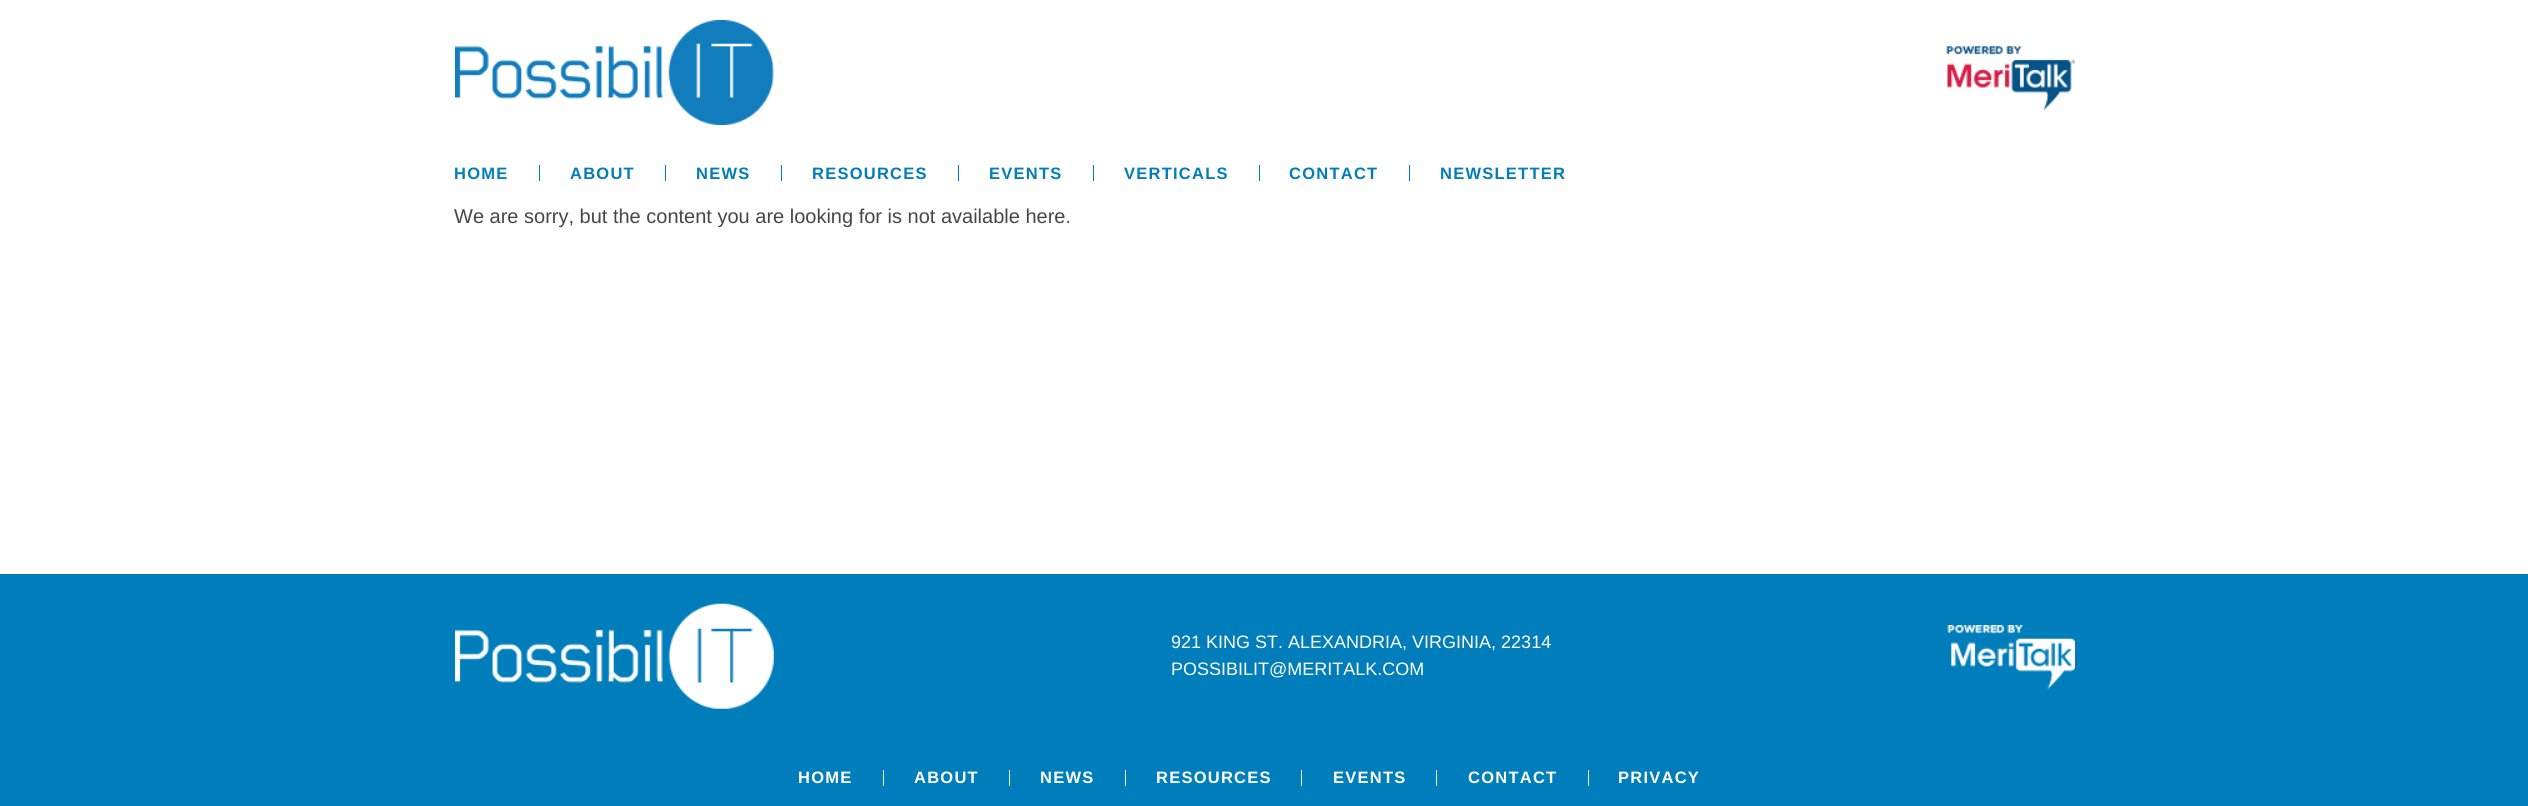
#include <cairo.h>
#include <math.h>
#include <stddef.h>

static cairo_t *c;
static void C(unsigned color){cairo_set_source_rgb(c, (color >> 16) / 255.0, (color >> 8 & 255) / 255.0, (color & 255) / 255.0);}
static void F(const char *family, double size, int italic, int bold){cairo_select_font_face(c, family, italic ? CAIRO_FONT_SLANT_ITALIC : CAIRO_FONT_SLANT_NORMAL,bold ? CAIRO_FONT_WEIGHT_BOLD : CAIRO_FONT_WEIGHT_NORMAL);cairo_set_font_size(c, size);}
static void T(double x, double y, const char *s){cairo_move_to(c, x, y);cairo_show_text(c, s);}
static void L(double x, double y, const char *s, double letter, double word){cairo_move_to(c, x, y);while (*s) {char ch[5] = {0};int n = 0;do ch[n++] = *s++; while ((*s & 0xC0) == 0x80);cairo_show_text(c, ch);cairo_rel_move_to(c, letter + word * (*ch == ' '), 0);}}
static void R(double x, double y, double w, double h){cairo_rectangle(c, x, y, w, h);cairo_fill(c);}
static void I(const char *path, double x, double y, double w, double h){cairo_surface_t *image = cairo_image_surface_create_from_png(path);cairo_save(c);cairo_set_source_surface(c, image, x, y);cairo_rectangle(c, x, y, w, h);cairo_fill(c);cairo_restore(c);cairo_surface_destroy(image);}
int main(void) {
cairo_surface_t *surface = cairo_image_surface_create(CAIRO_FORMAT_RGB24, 2528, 806);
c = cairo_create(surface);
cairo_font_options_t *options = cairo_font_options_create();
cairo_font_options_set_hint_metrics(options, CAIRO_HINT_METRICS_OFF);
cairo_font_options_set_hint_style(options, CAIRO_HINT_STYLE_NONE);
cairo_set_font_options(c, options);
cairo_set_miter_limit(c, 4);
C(0xffffff);
cairo_paint(c);
I("1.png",455,20,319,105);
I("2.png",1946,46,129,65);
F("Liberation Sans",16.5,0,1);
C(0x017db9);
L(454,179,"HOME",1.25,0);
C(0x007dbb);
R(539,165,1,16);
C(0x017db9);
L(570,179,"ABOUT",1.25,0);
C(0x007dbb);
R(665,165,1,16);
C(0x017db9);
L(696,179,"NEWS",1.25,0);
C(0x007dbb);
R(781,165,1,16);
C(0x017db9);
L(812,179,"RESOURCES",1.25,0);
C(0x007dbb);
R(958,165,1,16);
C(0x017db9);
L(989,179,"EVENTS",1.25,0);
C(0x007dbb);
R(1093,165,1,16);
C(0x017db9);
L(1124,179,"VERTICALS",1.25,0);
C(0x007dbb);
R(1259,165,1,16);
C(0x017db9);
L(1289,179,"CONTACT",1.25,0);
C(0x007dbb);
R(1409,165,1,16);
C(0x017db9);
L(1440,179,"NEWSLETTER",1.25,0);
F("Liberation Sans",20,0,0);
C(0x464646);
T(454,223,"We are sorry, but the content you are looking for is not available here.");
C(0x007dbb);
R(0,574,2528,232);
I("3.png",455,603,319,106);
F("Liberation Sans",18,0,0);
C(0xffffff);
T(1171,648,"921 KING ST. ALEXANDRIA, VIRGINIA, 22314");
T(1171,675,"POSSIBILIT@MERITALK.COM");
I("4.png",1947,625,128,64);
F("Liberation Sans",16.5,0,1);
L(798,783,"HOME",1.25,0);
R(883,770,1,16);
L(914,783,"ABOUT",1.25,0);
R(1009,770,1,16);
L(1040,783,"NEWS",1.25,0);
R(1125,770,1,16);
L(1156,783,"RESOURCES",1.25,0);
R(1301,770,1,16);
L(1333,783,"EVENTS",1.25,0);
R(1436,770,1,16);
L(1468,783,"CONTACT",1.25,0);
R(1588,770,1,16);
L(1618,783,"PRIVACY",1.25,0);
cairo_surface_write_to_png(surface, "o.png");
cairo_font_options_destroy(options);
cairo_destroy(c);
cairo_surface_destroy(surface);
return 0;
}
